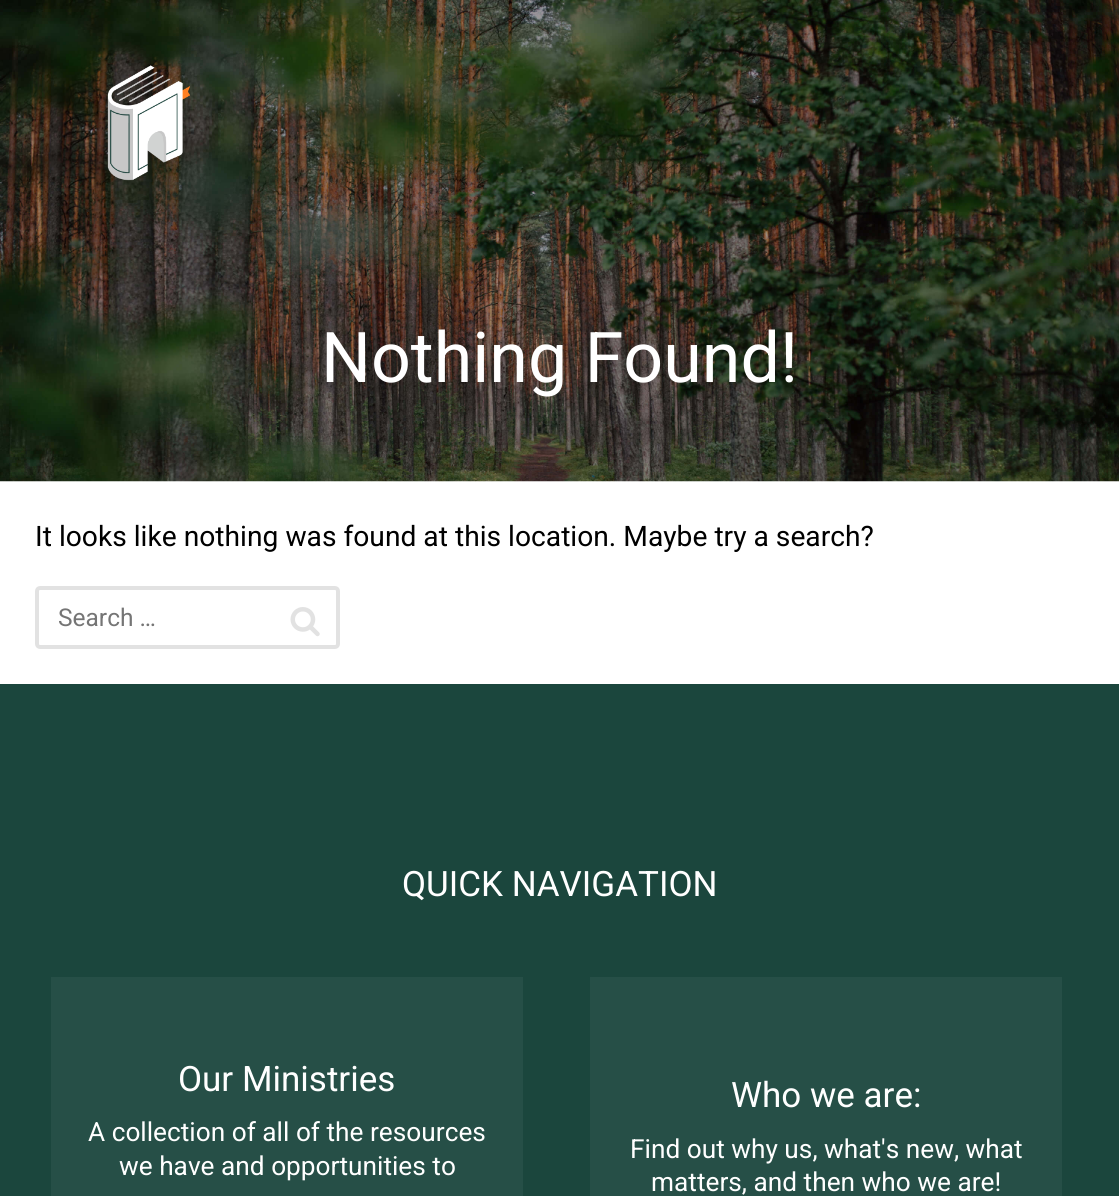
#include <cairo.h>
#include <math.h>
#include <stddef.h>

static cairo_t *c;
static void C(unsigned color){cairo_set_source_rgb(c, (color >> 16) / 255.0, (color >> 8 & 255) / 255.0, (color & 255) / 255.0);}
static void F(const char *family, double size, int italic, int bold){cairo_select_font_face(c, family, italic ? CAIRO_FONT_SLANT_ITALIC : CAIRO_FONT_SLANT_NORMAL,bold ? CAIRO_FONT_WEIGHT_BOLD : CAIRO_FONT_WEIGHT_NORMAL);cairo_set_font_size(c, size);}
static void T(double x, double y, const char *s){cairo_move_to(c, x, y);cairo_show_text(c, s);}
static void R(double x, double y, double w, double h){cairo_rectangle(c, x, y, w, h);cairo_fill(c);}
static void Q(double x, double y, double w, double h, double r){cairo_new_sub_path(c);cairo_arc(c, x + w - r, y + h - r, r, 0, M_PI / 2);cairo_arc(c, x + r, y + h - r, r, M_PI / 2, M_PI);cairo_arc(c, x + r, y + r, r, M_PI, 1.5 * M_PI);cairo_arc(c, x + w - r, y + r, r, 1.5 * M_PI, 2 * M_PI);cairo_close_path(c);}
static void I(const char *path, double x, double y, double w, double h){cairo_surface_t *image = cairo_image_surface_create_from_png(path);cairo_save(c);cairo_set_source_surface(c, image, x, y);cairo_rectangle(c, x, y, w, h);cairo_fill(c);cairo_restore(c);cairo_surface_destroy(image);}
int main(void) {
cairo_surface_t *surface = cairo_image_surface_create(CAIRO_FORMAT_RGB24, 1119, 1196);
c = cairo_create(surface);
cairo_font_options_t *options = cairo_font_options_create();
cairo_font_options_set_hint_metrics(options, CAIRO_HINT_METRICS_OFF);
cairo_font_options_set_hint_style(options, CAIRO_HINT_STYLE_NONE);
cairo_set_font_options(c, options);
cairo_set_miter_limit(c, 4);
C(0xffffff);
cairo_paint(c);
I("2.png",0,0,1119,482);
I("1.png",107,65,83,116);
F("Roboto",70,0,0);
C(0xffffff);
T(321,382,"Nothing Found!");
F("Roboto",28.2,0,0);
C(0x000000);
T(35,546,"It looks like nothing was found at this location. Maybe try a search?");
Q(37,588,301,59,3);
C(0xe2e2e2);
cairo_set_line_width(c,4);
cairo_stroke(c);
F("Roboto",24.5,0,0);
C(0x757575);
T(58,626,"Search …");
I("3.png",290,607,30,30);
C(0x1b463d);
R(0,684,1119,512);
F("Roboto",35,0,0);
C(0xffffff);
T(402,896,"QUICK NAVIGATION");
C(0x264f47);
R(51,977,472,219);
C(0xffffff);
T(178,1091,"Our Ministries");
F("Roboto",26.25,0,0);
T(88,1141,"A collection of all of the resources");
T(119,1175,"we have and opportunities to");
C(0x264f47);
R(590,977,472,219);
F("Roboto",35,0,0);
C(0xffffff);
T(731,1107,"Who we are:");
F("Roboto",26.25,0,0);
T(630,1158,"Find out why us, what's new, what");
T(651,1191,"matters, and then who we are!");
cairo_surface_write_to_png(surface, "o.png");
cairo_font_options_destroy(options);
cairo_destroy(c);
cairo_surface_destroy(surface);
return 0;
}
